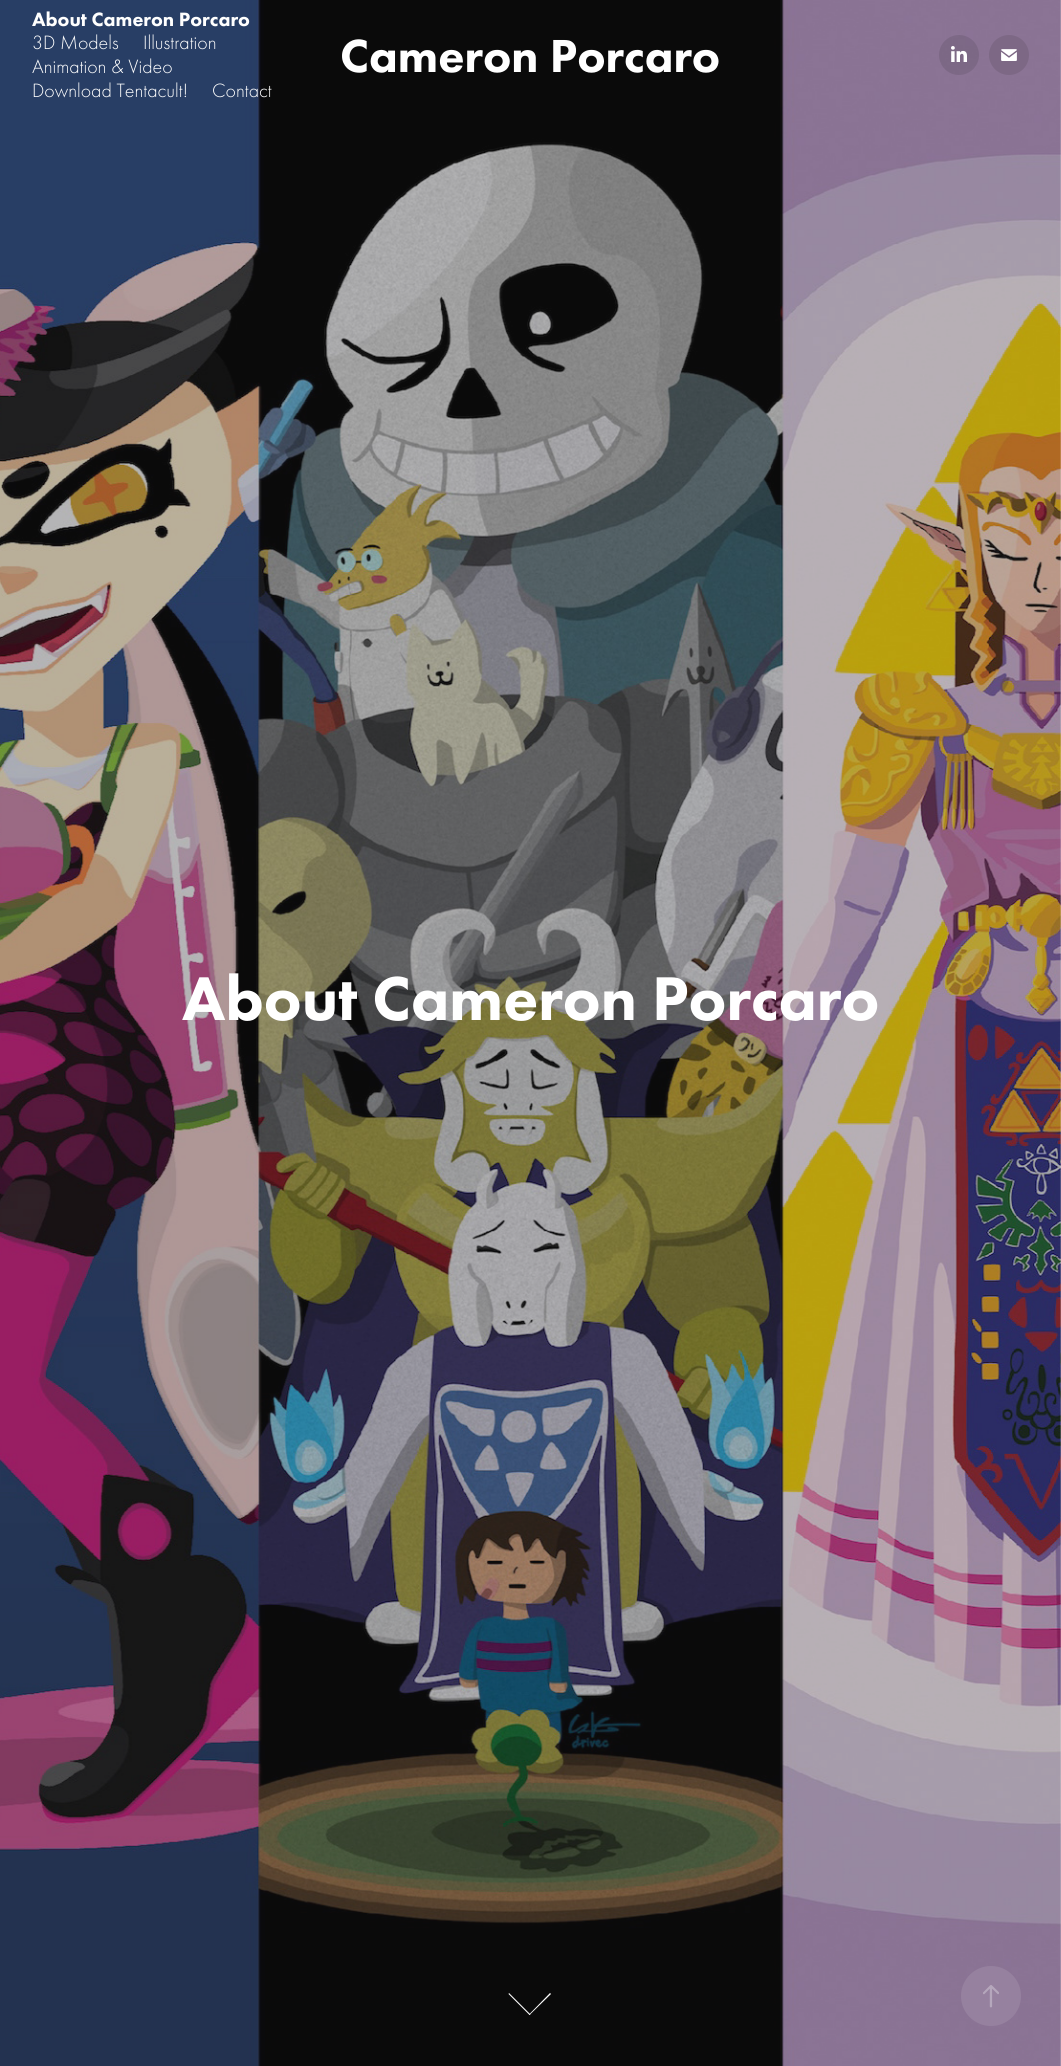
#include <cairo.h>
#include <math.h>
#include <stddef.h>

static cairo_t *c;
static void C(unsigned color){cairo_set_source_rgb(c, (color >> 16) / 255.0, (color >> 8 & 255) / 255.0, (color & 255) / 255.0);}
static void F(const char *family, double size, int italic, int bold){cairo_select_font_face(c, family, italic ? CAIRO_FONT_SLANT_ITALIC : CAIRO_FONT_SLANT_NORMAL,bold ? CAIRO_FONT_WEIGHT_BOLD : CAIRO_FONT_WEIGHT_NORMAL);cairo_set_font_size(c, size);}
static void T(double x, double y, const char *s){cairo_move_to(c, x, y);cairo_show_text(c, s);}
static void I(const char *path, double x, double y, double w, double h){cairo_surface_t *image = cairo_image_surface_create_from_png(path);cairo_save(c);cairo_set_source_surface(c, image, x, y);cairo_rectangle(c, x, y, w, h);cairo_fill(c);cairo_restore(c);cairo_surface_destroy(image);}
int main(void) {
cairo_surface_t *surface = cairo_image_surface_create(CAIRO_FORMAT_RGB24, 1061, 2066);
c = cairo_create(surface);
cairo_font_options_t *options = cairo_font_options_create();
cairo_font_options_set_hint_metrics(options, CAIRO_HINT_METRICS_OFF);
cairo_font_options_set_hint_style(options, CAIRO_HINT_STYLE_NONE);
cairo_set_font_options(c, options);
cairo_set_miter_limit(c, 4);
C(0xffffff);
cairo_paint(c);
I("3.png",0,0,1061,2066);
F("Futura PT Black",20,0,0);
C(0xffffff);
T(32,26,"About Cameron Porcaro");
F("Futura PT Light",20,0,0);
T(32,49,"3D Models");
T(143,49,"Illustration");
T(32,73,"Animation & Video");
T(32,97,"Download Tentacult!");
T(212,97,"Contact");
F("Futura PT Black",48,0,0);
T(340,72,"Cameron Porcaro");
cairo_set_source_rgba(c,0,0,0,0.1);
cairo_new_path(c);
cairo_arc(c,959,55,20,0,2 * M_PI);
cairo_fill(c);
I("1.png",951,46,16,16);
C(0x7d6885);
cairo_arc(c,1009,55,20,0,2 * M_PI);
cairo_fill(c);
I("2.png",1001,49,16,12);
F("Futura PT Black",64,0,0);
C(0xffffff);
T(182,1020,"About Cameron Porcaro");
cairo_new_path(c);
cairo_move_to(c,550,1993);
cairo_line_to(c,551,1994);
cairo_line_to(c,529.5,2015);
cairo_line_to(c,529,2014.5);
cairo_close_path(c);
cairo_fill(c);
cairo_new_path(c);
cairo_move_to(c,509,1993);
cairo_line_to(c,530.5,2014.5);
cairo_line_to(c,529.5,2015);
cairo_line_to(c,508.5,1994);
cairo_close_path(c);
cairo_fill(c);
C(0x96819f);
cairo_arc(c,991,1996,30,0,2 * M_PI);
cairo_fill(c);
I("4.png",983,1985,16,23);
cairo_surface_write_to_png(surface, "o.png");
cairo_font_options_destroy(options);
cairo_destroy(c);
cairo_surface_destroy(surface);
return 0;
}
